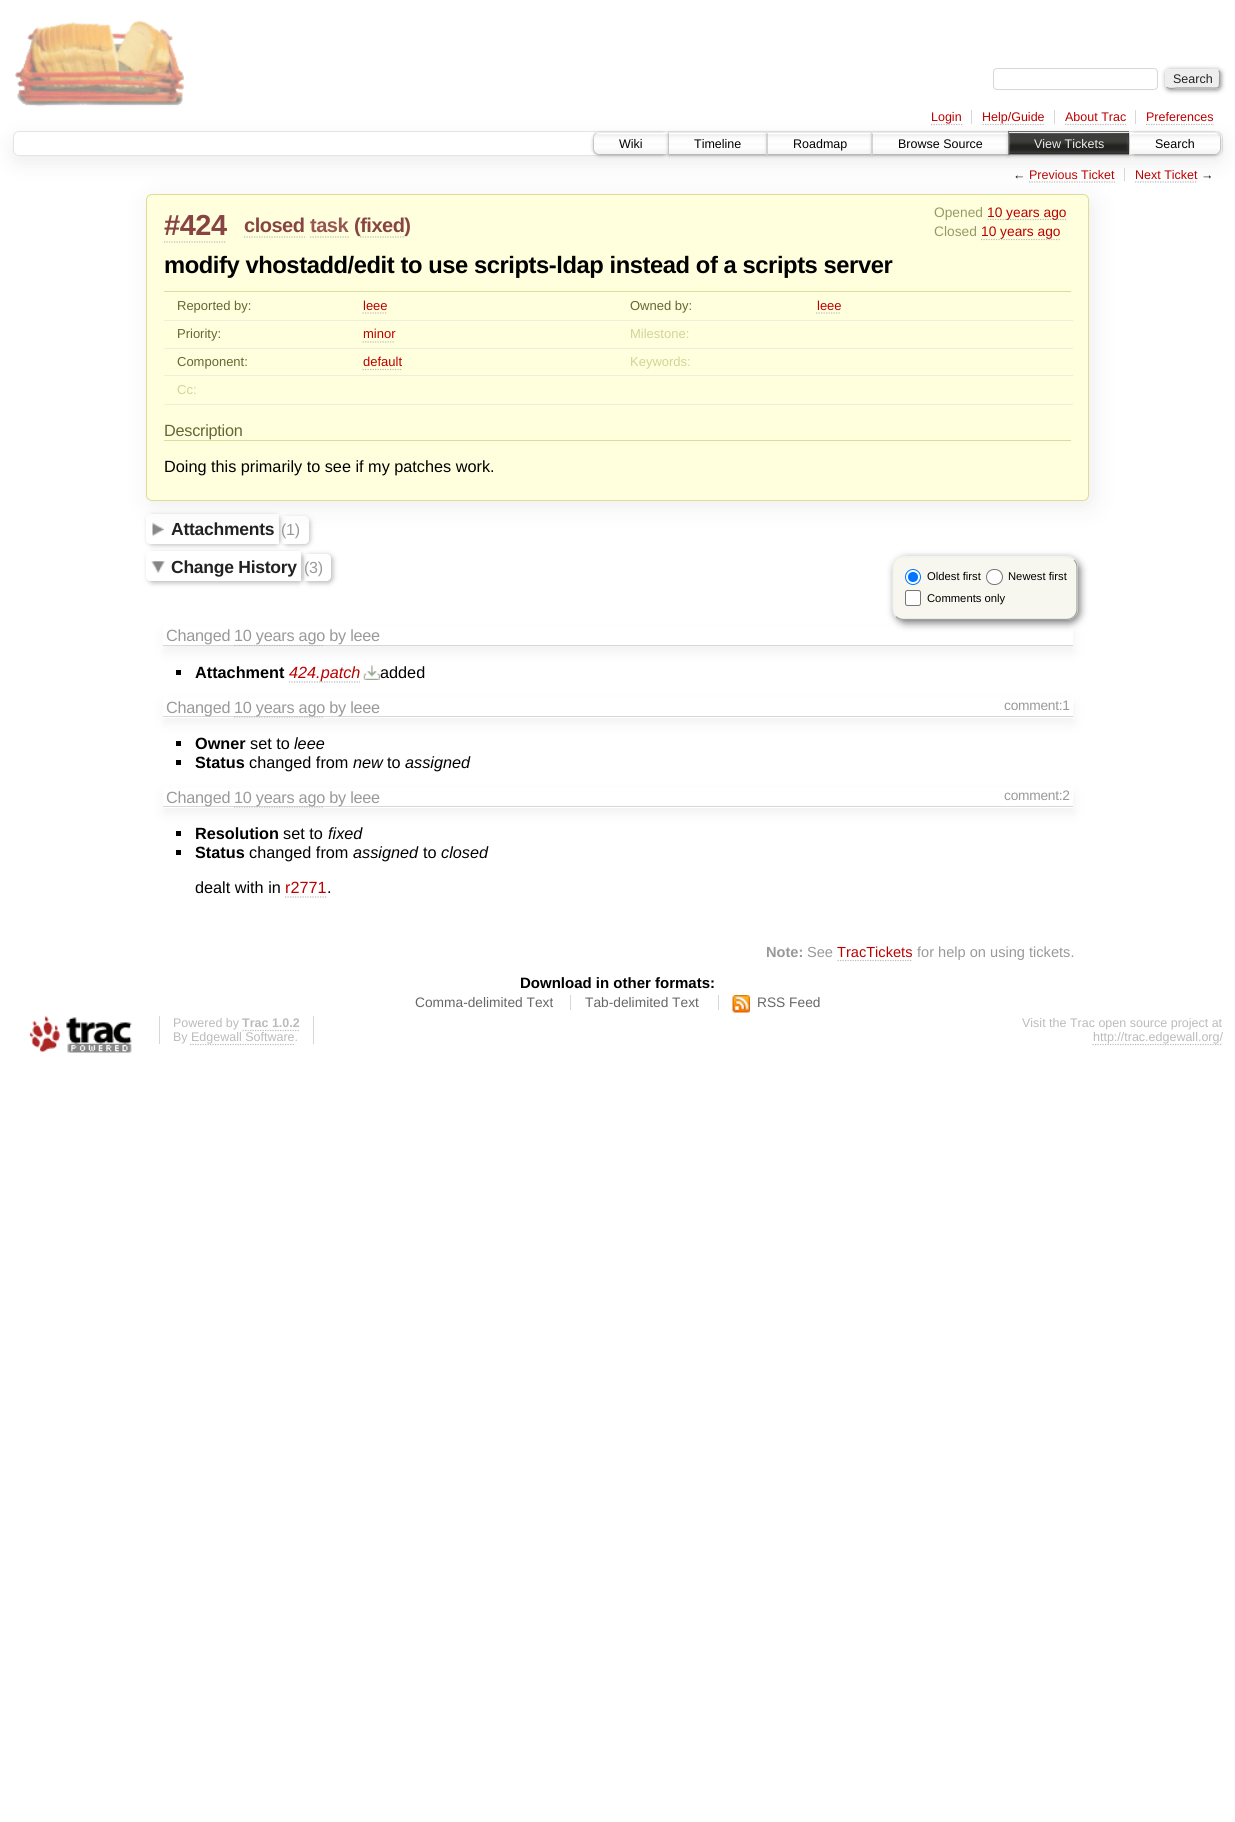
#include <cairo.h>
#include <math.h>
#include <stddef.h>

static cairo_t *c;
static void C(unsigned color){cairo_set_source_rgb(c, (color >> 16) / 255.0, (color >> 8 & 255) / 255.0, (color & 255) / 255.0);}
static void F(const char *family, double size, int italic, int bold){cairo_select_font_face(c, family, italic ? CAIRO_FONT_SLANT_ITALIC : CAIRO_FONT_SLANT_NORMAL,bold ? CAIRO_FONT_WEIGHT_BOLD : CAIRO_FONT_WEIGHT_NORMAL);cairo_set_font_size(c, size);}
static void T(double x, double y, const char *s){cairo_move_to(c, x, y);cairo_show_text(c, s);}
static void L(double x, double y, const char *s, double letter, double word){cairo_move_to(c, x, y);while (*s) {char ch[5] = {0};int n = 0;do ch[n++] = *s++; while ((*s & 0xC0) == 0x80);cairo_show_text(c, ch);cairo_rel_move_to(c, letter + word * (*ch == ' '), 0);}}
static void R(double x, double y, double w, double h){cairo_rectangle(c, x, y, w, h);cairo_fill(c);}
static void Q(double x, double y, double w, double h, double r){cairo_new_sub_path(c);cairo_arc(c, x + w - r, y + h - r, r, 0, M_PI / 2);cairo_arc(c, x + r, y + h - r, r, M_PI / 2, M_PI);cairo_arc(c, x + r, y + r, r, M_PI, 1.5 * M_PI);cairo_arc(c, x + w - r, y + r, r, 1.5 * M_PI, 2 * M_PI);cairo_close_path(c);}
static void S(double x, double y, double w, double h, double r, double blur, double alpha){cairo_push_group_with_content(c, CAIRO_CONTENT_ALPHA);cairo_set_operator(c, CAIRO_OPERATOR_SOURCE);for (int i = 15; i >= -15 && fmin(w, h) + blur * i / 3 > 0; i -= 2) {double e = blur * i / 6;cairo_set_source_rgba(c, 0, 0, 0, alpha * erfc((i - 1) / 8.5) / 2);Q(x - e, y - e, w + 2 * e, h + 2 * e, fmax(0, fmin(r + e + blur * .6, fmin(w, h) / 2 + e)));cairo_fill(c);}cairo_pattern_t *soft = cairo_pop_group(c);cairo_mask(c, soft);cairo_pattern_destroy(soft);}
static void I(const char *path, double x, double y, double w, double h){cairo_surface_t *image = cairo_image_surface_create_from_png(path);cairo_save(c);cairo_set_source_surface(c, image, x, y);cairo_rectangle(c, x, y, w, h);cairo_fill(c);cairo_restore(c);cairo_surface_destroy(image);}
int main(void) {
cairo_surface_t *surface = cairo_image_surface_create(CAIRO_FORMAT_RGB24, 1235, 1822);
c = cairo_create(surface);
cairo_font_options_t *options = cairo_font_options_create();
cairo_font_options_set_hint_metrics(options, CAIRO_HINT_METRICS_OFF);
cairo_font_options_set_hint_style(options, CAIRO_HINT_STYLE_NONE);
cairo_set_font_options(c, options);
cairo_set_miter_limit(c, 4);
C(0xffffff);
cairo_paint(c);
I("1.png",15,21,169,86);
Q(993.5,68.5,164,21,3.5);
C(0xd7d7d7);
cairo_set_line_width(c,1);
cairo_stroke(c);
C(0x888888);
S(1166,70,55,20,4,2.5,1);
C(0xeeeeee);
Q(1165,69,55,20,4);
cairo_fill(c);
cairo_new_path(c);
cairo_move_to(c,1218.5,70.5);
cairo_curve_to(c,1220.5,72.5,1219.5,76.5,1219.5,79);
cairo_curve_to(c,1219.5,89.5,1220,88,1208.5,88);
cairo_line_to(c,1176.5,88);
cairo_curve_to(c,1176,88,1168.5,89.5,1166.5,87);
C(0x9f9f9f);
cairo_set_line_width(c,1.2);
cairo_stroke(c);
cairo_new_path(c);
cairo_move_to(c,1166.5,87);
cairo_curve_to(c,1164.5,85,1165.5,81,1165.5,79);
cairo_curve_to(c,1165.5,68,1165,69.5,1176.5,69.5);
cairo_line_to(c,1208.5,69.5);
cairo_curve_to(c,1209,69.5,1216.5,68,1218.5,70.5);
C(0xeeeeee);
cairo_stroke(c);
F("Liberation Sans",12.5,0,0);
C(0x222222);
T(1173,83,"Search");
cairo_save(c);
cairo_set_fill_rule(c,CAIRO_FILL_RULE_EVEN_ODD);
cairo_new_path(c);
cairo_move_to(c,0,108);
cairo_line_to(c,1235,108);
cairo_line_to(c,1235,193);
cairo_line_to(c,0,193);
cairo_close_path(c);
cairo_move_to(c,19,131);
cairo_line_to(c,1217,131);
cairo_curve_to(c,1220.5,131,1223,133.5,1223,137);
cairo_line_to(c,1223,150);
cairo_curve_to(c,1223,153.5,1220.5,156,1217,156);
cairo_line_to(c,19,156);
cairo_curve_to(c,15.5,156,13,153.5,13,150);
cairo_line_to(c,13,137);
cairo_curve_to(c,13,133.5,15.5,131,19,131);
cairo_close_path(c);
cairo_clip(c);
C(0xeeeeee);
S(13,138,1210,25,6,9.5,1);
cairo_restore(c);
C(0xd7d7d7);
R(971,110,1,14);
cairo_new_path(c);
cairo_move_to(c,931,124.5);
cairo_line_to(c,962.5,124.5);
C(0xbbbbbb);
cairo_set_dash(c,(double[]){1.25,1.25},2,0);
cairo_stroke(c);
C(0xbb0000);
T(931,121,"Login");
C(0xd7d7d7);
R(1054,110,1,14);
cairo_new_path(c);
cairo_move_to(c,982.5,124.5);
cairo_line_to(c,1045,124.5);
C(0xbbbbbb);
cairo_stroke(c);
C(0xbb0000);
T(982,121,"Help/Guide");
C(0xd7d7d7);
R(1135,110,1,14);
C(0xbb0000);
T(1065,121,"About Trac");
cairo_new_path(c);
cairo_move_to(c,1065,124.5);
cairo_line_to(c,1126,124.5);
C(0xbbbbbb);
cairo_stroke(c);
C(0xbb0000);
T(1146,121,"Preferences");
cairo_new_path(c);
cairo_move_to(c,1146,124.5);
cairo_line_to(c,1214,124.5);
C(0xbbbbbb);
cairo_stroke(c);
Q(13.5,131.5,1209,24,5.5);
C(0xe4e4e4);
cairo_set_line_width(c,1);
cairo_set_dash(c,NULL,0,0);
cairo_stroke(c);
C(0xffffff);
cairo_new_path(c);
cairo_move_to(c,599,131);
cairo_line_to(c,669,131);
cairo_line_to(c,669,155);
cairo_line_to(c,599,155);
cairo_curve_to(c,595.5,155,593,152.5,593,149);
cairo_line_to(c,593,137);
cairo_curve_to(c,593,133.5,595.5,131,599,131);
cairo_close_path(c);
cairo_fill(c);
I("2.png",593,134,75,21);
cairo_new_path(c);
cairo_move_to(c,599,131.5);
cairo_line_to(c,668.5,131.5);
cairo_line_to(c,668.5,154.5);
cairo_line_to(c,599,154.5);
cairo_curve_to(c,596,154.5,593.5,152,593.5,149);
cairo_line_to(c,593.5,137);
cairo_curve_to(c,593.5,134,596,131.5,599,131.5);
cairo_close_path(c);
C(0xe4e4e4);
cairo_stroke(c);
cairo_save(c);
cairo_set_fill_rule(c,CAIRO_FILL_RULE_EVEN_ODD);
cairo_new_path(c);
cairo_move_to(c,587,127);
cairo_line_to(c,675,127);
cairo_line_to(c,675,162);
cairo_line_to(c,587,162);
cairo_close_path(c);
cairo_move_to(c,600,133);
cairo_line_to(c,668,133);
cairo_line_to(c,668,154);
cairo_line_to(c,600,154);
cairo_curve_to(c,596.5,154,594,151.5,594,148);
cairo_line_to(c,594,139);
cairo_curve_to(c,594,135.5,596.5,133,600,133);
cairo_close_path(c);
cairo_clip(c);
C(0x999999);
S(594,134,74,21,6,2,1);
cairo_restore(c);
C(0x000000);
T(619,148,"Wiki");
C(0xffffff);
R(669,134,3,20);
I("3.png",667,134,99,20);
cairo_rectangle(c,668.5,131.5,99,23);
C(0xe4e4e4);
cairo_stroke(c);
cairo_save(c);
cairo_set_fill_rule(c,CAIRO_FILL_RULE_EVEN_ODD);
cairo_new_path(c);
cairo_move_to(c,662,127);
cairo_line_to(c,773,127);
cairo_line_to(c,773,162);
cairo_line_to(c,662,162);
cairo_close_path(c);
cairo_move_to(c,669,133);
cairo_line_to(c,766,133);
cairo_line_to(c,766,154);
cairo_line_to(c,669,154);
cairo_close_path(c);
cairo_clip(c);
C(0x999999);
S(669,134,97,21,0,2,1);
cairo_restore(c);
C(0x000000);
T(694,148,"Timeline");
C(0xffffff);
R(767,132,3,22);
I("4.png",767,134,104,20);
cairo_rectangle(c,766.5,131.5,106,23);
C(0xe4e4e4);
cairo_stroke(c);
cairo_save(c);
cairo_set_fill_rule(c,CAIRO_FILL_RULE_EVEN_ODD);
cairo_new_path(c);
cairo_move_to(c,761,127);
cairo_line_to(c,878,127);
cairo_line_to(c,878,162);
cairo_line_to(c,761,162);
cairo_close_path(c);
cairo_move_to(c,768,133);
cairo_line_to(c,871,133);
cairo_line_to(c,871,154);
cairo_line_to(c,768,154);
cairo_close_path(c);
cairo_clip(c);
C(0x999999);
S(768,134,103,21,0,2,1);
cairo_restore(c);
C(0x000000);
T(793,148,"Roadmap");
C(0xffffff);
R(872,132,3,22);
I("5.png",872,134,136,20);
cairo_rectangle(c,871.5,131.5,137,23);
C(0xe4e4e4);
cairo_stroke(c);
cairo_save(c);
cairo_set_fill_rule(c,CAIRO_FILL_RULE_EVEN_ODD);
cairo_new_path(c);
cairo_move_to(c,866,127);
cairo_line_to(c,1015,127);
cairo_line_to(c,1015,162);
cairo_line_to(c,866,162);
cairo_close_path(c);
cairo_move_to(c,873,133);
cairo_line_to(c,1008,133);
cairo_line_to(c,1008,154);
cairo_line_to(c,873,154);
cairo_close_path(c);
cairo_clip(c);
C(0x999999);
S(873,134,135,21,0,2,1);
cairo_restore(c);
C(0x000000);
T(898,148,"Browse Source");
C(0xffffff);
R(1009,132,1,1);
I("6.png",1007,134,1,7);
cairo_rectangle(c,1008.5,131.5,121,23);
C(0x666666);
cairo_stroke(c);
C(0x999999);
S(1009,134,120,21,0,2,1);
C(0x000000);
R(1009,133,120,21);
I("7.png",1008,132,121,22);
C(0xeeeeee);
T(1034,148,"View Tickets");
C(0xffffff);
cairo_new_path(c);
cairo_move_to(c,1129,131);
cairo_line_to(c,1215,131);
cairo_curve_to(c,1218.5,131,1221,133.5,1221,137);
cairo_line_to(c,1221,149);
cairo_curve_to(c,1221,152.5,1218.5,155,1215,155);
cairo_line_to(c,1129,155);
cairo_close_path(c);
cairo_fill(c);
I("8.png",1130,134,91,21);
cairo_new_path(c);
cairo_move_to(c,1129.5,131.5);
cairo_line_to(c,1215,131.5);
cairo_curve_to(c,1218,131.5,1220.5,134,1220.5,137);
cairo_line_to(c,1220.5,149);
cairo_curve_to(c,1220.5,152,1218,154.5,1215,154.5);
cairo_line_to(c,1129.5,154.5);
cairo_close_path(c);
C(0xe4e4e4);
cairo_stroke(c);
cairo_save(c);
cairo_set_fill_rule(c,CAIRO_FILL_RULE_EVEN_ODD);
cairo_new_path(c);
cairo_move_to(c,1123,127);
cairo_line_to(c,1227,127);
cairo_line_to(c,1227,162);
cairo_line_to(c,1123,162);
cairo_close_path(c);
cairo_move_to(c,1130,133);
cairo_line_to(c,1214,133);
cairo_curve_to(c,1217.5,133,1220,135.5,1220,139);
cairo_line_to(c,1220,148);
cairo_curve_to(c,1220,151.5,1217.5,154,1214,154);
cairo_line_to(c,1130,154);
cairo_close_path(c);
cairo_clip(c);
C(0x999999);
S(1130,134,90,21,6,2,1);
cairo_restore(c);
C(0x000000);
T(1155,148,"Search");
C(0xd7d7d7);
R(1124,168,1,13);
C(0x000000);
T(1013,179,"←");
cairo_new_path(c);
cairo_move_to(c,1029,182);
cairo_line_to(c,1115,182);
C(0xbbbbbb);
cairo_set_line_width(c,1.2);
cairo_set_dash(c,(double[]){1.25,1.25},2,0);
cairo_stroke(c);
C(0xbb0000);
T(1029,179,"Previous Ticket");
T(1135,179,"Next Ticket");
cairo_new_path(c);
cairo_move_to(c,1135,182);
cairo_line_to(c,1197.5,182);
C(0xbbbbbb);
cairo_stroke(c);
C(0x000000);
T(1201,179,"→");
cairo_save(c);
cairo_set_fill_rule(c,CAIRO_FILL_RULE_EVEN_ODD);
cairo_new_path(c);
cairo_move_to(c,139,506);
cairo_line_to(c,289,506);
cairo_line_to(c,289,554);
cairo_line_to(c,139,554);
cairo_close_path(c);
cairo_move_to(c,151,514);
cairo_line_to(c,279,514);
cairo_line_to(c,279,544);
cairo_line_to(c,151,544);
cairo_curve_to(c,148,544,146,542,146,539);
cairo_line_to(c,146,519);
cairo_curve_to(c,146,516,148,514,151,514);
cairo_close_path(c);
cairo_clip(c);
C(0xbbbbbb);
S(148,515,132,30,5,2.5,1);
cairo_restore(c);
I("9.png",152,522,12,15);
C(0xeeeeee);
S(150,199,943,307,6,12,1);
C(0xffffdd);
Q(146.5,194.5,942,306,5.5);
cairo_fill_preserve(c);
C(0xdddd99);
cairo_set_line_width(c,1);
cairo_set_dash(c,NULL,0,0);
cairo_stroke(c);
F("Liberation Sans",29,0,1);
C(0x884444);
L(164,235,"#424",-.5,0);
cairo_new_path(c);
cairo_move_to(c,164,242);
cairo_line_to(c,226,242);
C(0xbbbbbb);
cairo_set_line_width(c,1.2);
cairo_set_dash(c,(double[]){1.25,1.25},2,0);
cairo_stroke(c);
F("Liberation Sans",20,0,1);
C(0x884444);
L(244,232,"closed",-.5,0);
cairo_new_path(c);
cairo_move_to(c,244,237);
cairo_line_to(c,305,237);
C(0xbbbbbb);
cairo_stroke(c);
C(0x995555);
L(310,232,"task",-.5,0);
cairo_new_path(c);
cairo_move_to(c,310,237);
cairo_line_to(c,349,237);
C(0xbbbbbb);
cairo_stroke(c);
C(0x884444);
L(354,232,"(fixed)",-.5,0);
cairo_new_path(c);
cairo_move_to(c,360,237);
cairo_line_to(c,405,237);
C(0xbbbbbb);
cairo_stroke(c);
F("Liberation Sans",13.75,0,0);
C(0x999966);
T(934,217,"Opened");
cairo_new_path(c);
cairo_move_to(c,987.5,219.5);
cairo_line_to(c,1067.5,219.5);
C(0xbbbbbb);
cairo_stroke(c);
C(0xbb0000);
T(987,217,"10 years ago");
C(0x999966);
T(934,236,"Closed");
cairo_new_path(c);
cairo_move_to(c,981,239.5);
cairo_line_to(c,1061,239.5);
C(0xbbbbbb);
cairo_stroke(c);
C(0xbb0000);
T(981,236,"10 years ago");
F("Liberation Sans",23.75,0,1);
C(0x000000);
L(164,273,"modify vhostadd/edit to use scripts-ldap instead of a scripts server",-.43,0);
C(0xdddd99);
R(164,291,907,1);
C(0xeeeedd);
R(164,320,909,1);
F("Liberation Sans",13,0,0);
C(0x666633);
T(177,310,"Reported by:");
C(0xbb0000);
T(363,310,"leee");
cairo_new_path(c);
cairo_move_to(c,362.5,313);
cairo_line_to(c,387.5,313);
C(0xbbbbbb);
cairo_stroke(c);
C(0x666633);
T(630,310,"Owned by:");
C(0xbb0000);
T(817,310,"leee");
cairo_new_path(c);
cairo_move_to(c,816,313);
cairo_line_to(c,841,313);
C(0xbbbbbb);
cairo_stroke(c);
C(0xeeeedd);
R(164,348,909,1);
C(0x666633);
T(177,338,"Priority:");
C(0xbb0000);
T(363,338,"minor");
cairo_new_path(c);
cairo_move_to(c,362.5,342);
cairo_line_to(c,395,342);
C(0xbbbbbb);
cairo_stroke(c);
C(0xd3d398);
T(630,338,"Milestone:");
C(0xeeeedd);
R(164,375,909,1);
C(0x666633);
T(177,366,"Component:");
C(0xbb0000);
T(363,366,"default");
cairo_new_path(c);
cairo_move_to(c,362.5,369.5);
cairo_line_to(c,402.5,369.5);
C(0xbbbbbb);
cairo_stroke(c);
C(0xd3d398);
T(630,366,"Keywords:");
C(0xeeeedd);
R(164,404,909,1);
C(0xd3d398);
T(177,394,"Cc:");
C(0xdddd99);
R(164,440,907,1);
F("Liberation Sans",16.25,0,0);
C(0x666633);
L(164,436,"Description",-.25,0);
C(0x000000);
T(164,472,"Doing this primarily to see if my patches work.");
F("Liberation Sans",17.5,0,1);
C(0x222222);
L(171,535,"Attachments",-.25,0);
cairo_save(c);
cairo_set_fill_rule(c,CAIRO_FILL_RULE_EVEN_ODD);
cairo_new_path(c);
cairo_move_to(c,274,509);
cairo_line_to(c,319,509);
cairo_line_to(c,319,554);
cairo_line_to(c,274,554);
cairo_close_path(c);
cairo_move_to(c,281,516);
cairo_line_to(c,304,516);
cairo_curve_to(c,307,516,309,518,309,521);
cairo_line_to(c,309,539);
cairo_curve_to(c,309,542,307,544,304,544);
cairo_line_to(c,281,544);
cairo_close_path(c);
cairo_clip(c);
C(0xbbbbbb);
S(283,518,27,27,5,2.5,1);
cairo_restore(c);
F("Liberation Sans",16,0,0);
C(0x999999);
L(281,535,"(1)",-.25,0);
cairo_save(c);
cairo_set_fill_rule(c,CAIRO_FILL_RULE_EVEN_ODD);
cairo_new_path(c);
cairo_move_to(c,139,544);
cairo_line_to(c,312,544);
cairo_line_to(c,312,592);
cairo_line_to(c,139,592);
cairo_close_path(c);
cairo_move_to(c,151,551);
cairo_line_to(c,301,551);
cairo_line_to(c,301,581);
cairo_line_to(c,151,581);
cairo_curve_to(c,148,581,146,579,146,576);
cairo_line_to(c,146,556);
cairo_curve_to(c,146,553,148,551,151,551);
cairo_close_path(c);
cairo_clip(c);
C(0xbbbbbb);
S(148,553,155,30,5,2.5,1);
cairo_restore(c);
I("10.png",151,561,14,12);
cairo_save(c);
cairo_set_fill_rule(c,CAIRO_FILL_RULE_EVEN_ODD);
cairo_new_path(c);
cairo_move_to(c,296,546);
cairo_line_to(c,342,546);
cairo_line_to(c,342,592);
cairo_line_to(c,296,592);
cairo_close_path(c);
cairo_move_to(c,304,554);
cairo_line_to(c,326,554);
cairo_curve_to(c,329,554,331,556,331,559);
cairo_line_to(c,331,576);
cairo_curve_to(c,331,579,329,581,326,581);
cairo_line_to(c,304,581);
cairo_close_path(c);
cairo_clip(c);
C(0xbbbbbb);
S(305,555,28,28,5,2.5,1);
cairo_restore(c);
F("Liberation Sans",17.5,0,1);
C(0x222222);
L(171,573,"Change History",-.25,0);
F("Liberation Sans",16,0,0);
C(0x999999);
L(304,573,"(3)",-.25,0);
C(0x777777);
S(895,559,185,64,11,4,1);
cairo_save(c);
cairo_set_fill_rule(c,CAIRO_FILL_RULE_EVEN_ODD);
cairo_new_path(c);
cairo_move_to(c,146,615);
cairo_line_to(c,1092,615);
cairo_line_to(c,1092,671);
cairo_line_to(c,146,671);
cairo_close_path(c);
cairo_move_to(c,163,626);
cairo_line_to(c,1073,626);
cairo_line_to(c,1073,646);
cairo_line_to(c,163,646);
cairo_close_path(c);
cairo_clip(c);
C(0xf2f2f2);
S(164,633,910,20,0,5.5,1);
cairo_restore(c);
C(0xf7f7f0);
Q(893,556,185,64,11);
cairo_fill(c);
cairo_new_path(c);
cairo_move_to(c,1074,560);
cairo_curve_to(c,1076,562,1077,564.5,1077,567.5);
cairo_line_to(c,1077,609);
cairo_curve_to(c,1077,611.5,1076,614.5,1074,616.5);
cairo_curve_to(c,1072,618.5,1069,619.5,1066,619.5);
cairo_line_to(c,904,619.5);
cairo_curve_to(c,901,619.5,898,618.5,896,616.5);
C(0x9f9f9f);
cairo_set_dash(c,NULL,0,0);
cairo_stroke(c);
cairo_new_path(c);
cairo_move_to(c,896,616.5);
cairo_curve_to(c,894,614.5,893,611.5,893,609);
cairo_line_to(c,893,567.5);
cairo_curve_to(c,893,564.5,894,562,896,560);
cairo_curve_to(c,898,558,901,557,904,557);
cairo_line_to(c,1066,557);
cairo_curve_to(c,1069,557,1072,558,1074,560);
C(0xeeeeee);
cairo_stroke(c);
C(0xffffff);
cairo_arc(c,913,577,7.5,0,2 * M_PI);
cairo_fill_preserve(c);
C(0x0075ff);
cairo_set_line_width(c,1);
cairo_stroke(c);
cairo_arc(c,913,577,5,0,2 * M_PI);
cairo_fill(c);
F("Liberation Sans",11.25,0,0);
C(0x000000);
T(927,580,"Oldest first");
C(0xffffff);
Q(986.5,569.5,16,15,7.5);
cairo_fill_preserve(c);
C(0x767676);
cairo_stroke(c);
C(0x000000);
T(1008,580,"Newest first");
C(0xffffff);
Q(905.5,590.5,15,15,2);
cairo_fill_preserve(c);
C(0x767676);
cairo_stroke(c);
C(0x000000);
T(927,602,"Comments only");
C(0xd7d7d7);
R(163,645,910,1);
F("Liberation Sans",16.25,0,0);
C(0x999999);
L(166,641,"Changed",-.25,0);
cairo_new_path(c);
cairo_move_to(c,234,645.5);
cairo_line_to(c,324,645.5);
C(0xbbbbbb);
cairo_set_line_width(c,1.2);
cairo_set_dash(c,(double[]){1.25,1.25},2,0);
cairo_stroke(c);
C(0x999999);
L(234,641,"10 years ago by leee",-.25,0);
C(0x000000);
R(176,670,5,5);
F("Liberation Sans",16.25,0,1);
T(195,678,"Attachment");
cairo_new_path(c);
cairo_move_to(c,289,682);
cairo_line_to(c,360,682);
C(0xbbbbbb);
cairo_stroke(c);
F("Liberation Sans",16.25,1,0);
C(0xbb0000);
T(289,678,"424.patch");
I("11.png",363,665,17,15);
F("Liberation Sans",16.25,0,0);
C(0x000000);
T(380,678,"added");
cairo_save(c);
cairo_set_fill_rule(c,CAIRO_FILL_RULE_EVEN_ODD);
cairo_new_path(c);
cairo_move_to(c,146,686);
cairo_line_to(c,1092,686);
cairo_line_to(c,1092,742);
cairo_line_to(c,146,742);
cairo_close_path(c);
cairo_move_to(c,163,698);
cairo_line_to(c,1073,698);
cairo_line_to(c,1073,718);
cairo_line_to(c,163,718);
cairo_close_path(c);
cairo_clip(c);
C(0xf2f2f2);
S(164,704,910,20,0,5.5,1);
cairo_restore(c);
C(0xd7d7d7);
R(163,716,910,1);
C(0x999999);
L(166,713,"Changed",-.25,0);
cairo_new_path(c);
cairo_move_to(c,234,717);
cairo_line_to(c,324,717);
C(0xbbbbbb);
cairo_stroke(c);
C(0x999999);
L(234,713,"10 years ago by leee",-.25,0);
F("Liberation Sans",13.75,0,0);
L(1004,710,"comment:1",-.25,0);
C(0x000000);
R(176,741,5,5);
F("Liberation Sans",16.25,0,1);
T(195,749,"Owner");
F("Liberation Sans",16.25,0,0);
T(250,749,"set to");
F("Liberation Sans",16.25,1,0);
T(294,749,"leee");
R(176,760,5,5);
F("Liberation Sans",16.25,0,1);
T(195,768,"Status");
F("Liberation Sans",16.25,0,0);
T(249,768,"changed from");
F("Liberation Sans",16.25,1,0);
T(353,768,"new");
F("Liberation Sans",16.25,0,0);
T(387,768,"to");
F("Liberation Sans",16.25,1,0);
T(405,768,"assigned");
cairo_save(c);
cairo_set_fill_rule(c,CAIRO_FILL_RULE_EVEN_ODD);
cairo_new_path(c);
cairo_move_to(c,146,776);
cairo_line_to(c,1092,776);
cairo_line_to(c,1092,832);
cairo_line_to(c,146,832);
cairo_close_path(c);
cairo_move_to(c,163,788);
cairo_line_to(c,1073,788);
cairo_line_to(c,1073,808);
cairo_line_to(c,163,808);
cairo_close_path(c);
cairo_clip(c);
C(0xf2f2f2);
S(164,794,910,20,0,5.5,1);
cairo_restore(c);
C(0xd7d7d7);
R(163,806,910,1);
F("Liberation Sans",16.25,0,0);
C(0x999999);
L(166,803,"Changed",-.25,0);
cairo_new_path(c);
cairo_move_to(c,234,807);
cairo_line_to(c,324,807);
C(0xbbbbbb);
cairo_stroke(c);
C(0x999999);
L(234,803,"10 years ago by leee",-.25,0);
F("Liberation Sans",13.75,0,0);
L(1004,800,"comment:2",-.25,0);
C(0x000000);
R(176,831,5,5);
F("Liberation Sans",16.25,0,1);
T(195,839,"Resolution");
F("Liberation Sans",16.25,0,0);
T(283,839,"set to");
F("Liberation Sans",16.25,1,0);
T(328,839,"fixed");
R(176,850,5,5);
F("Liberation Sans",16.25,0,1);
T(195,858,"Status");
F("Liberation Sans",16.25,0,0);
T(249,858,"changed from");
F("Liberation Sans",16.25,1,0);
T(353,858,"assigned");
F("Liberation Sans",16.25,0,0);
T(423,858,"to");
F("Liberation Sans",16.25,1,0);
T(441,858,"closed");
F("Liberation Sans",16.25,0,0);
T(195,893,"dealt with in");
C(0xbb0000);
T(285,893,"r2771");
cairo_new_path(c);
cairo_move_to(c,285,897);
cairo_line_to(c,327.5,897);
C(0xbbbbbb);
cairo_stroke(c);
C(0x000000);
T(327,893,".");
F("Liberation Sans",14.6,0,1);
C(0x999999);
T(766,957,"Note:");
F("Liberation Sans",14.6,0,0);
T(807,957,"See");
C(0xbb0000);
T(837,957,"TracTickets");
cairo_new_path(c);
cairo_move_to(c,837.5,960.5);
cairo_line_to(c,912.5,960.5);
C(0xbbbbbb);
cairo_stroke(c);
C(0x999999);
T(917,957,"for help on using tickets.");
F("Liberation Sans",15,0,1);
C(0x000000);
T(520,988,"Download in other formats:");
F("Liberation Sans",13.75,0,0);
C(0x666666);
T(415,1007,"Comma-delimited Text");
C(0xd7d7d7);
R(570,995,1,15);
C(0x666666);
T(585,1007,"Tab-delimited Text");
C(0xd7d7d7);
R(718,995,1,15);
I("12.png",732,995,18,18);
C(0x666666);
T(757,1007,"RSS Feed");
I("13.png",29,1016,103,37);
C(0xd7d7d7);
R(313,1016,1,28);
R(159,1016,1,28);
F("Liberation Sans",12.5,0,0);
C(0xbbbbbb);
T(173,1027,"Powered by");
F("Liberation Sans",12.5,0,1);
T(242,1027,"Trac 1.0.2");
cairo_new_path(c);
cairo_move_to(c,242.5,1030.5);
cairo_line_to(c,300,1030.5);
cairo_stroke(c);
F("Liberation Sans",12.5,0,0);
T(173,1041,"By");
cairo_new_path(c);
cairo_move_to(c,190,1044.5);
cairo_line_to(c,294,1044.5);
cairo_stroke(c);
T(191,1041,"Edgewall Software.");
T(1022,1027,"Visit the Trac open source project at");
cairo_new_path(c);
cairo_move_to(c,1092.5,1044.5);
cairo_line_to(c,1222.5,1044.5);
cairo_stroke(c);
T(1093,1041,"http://trac.edgewall.org/");
cairo_surface_write_to_png(surface, "o.png");
cairo_font_options_destroy(options);
cairo_destroy(c);
cairo_surface_destroy(surface);
return 0;
}
